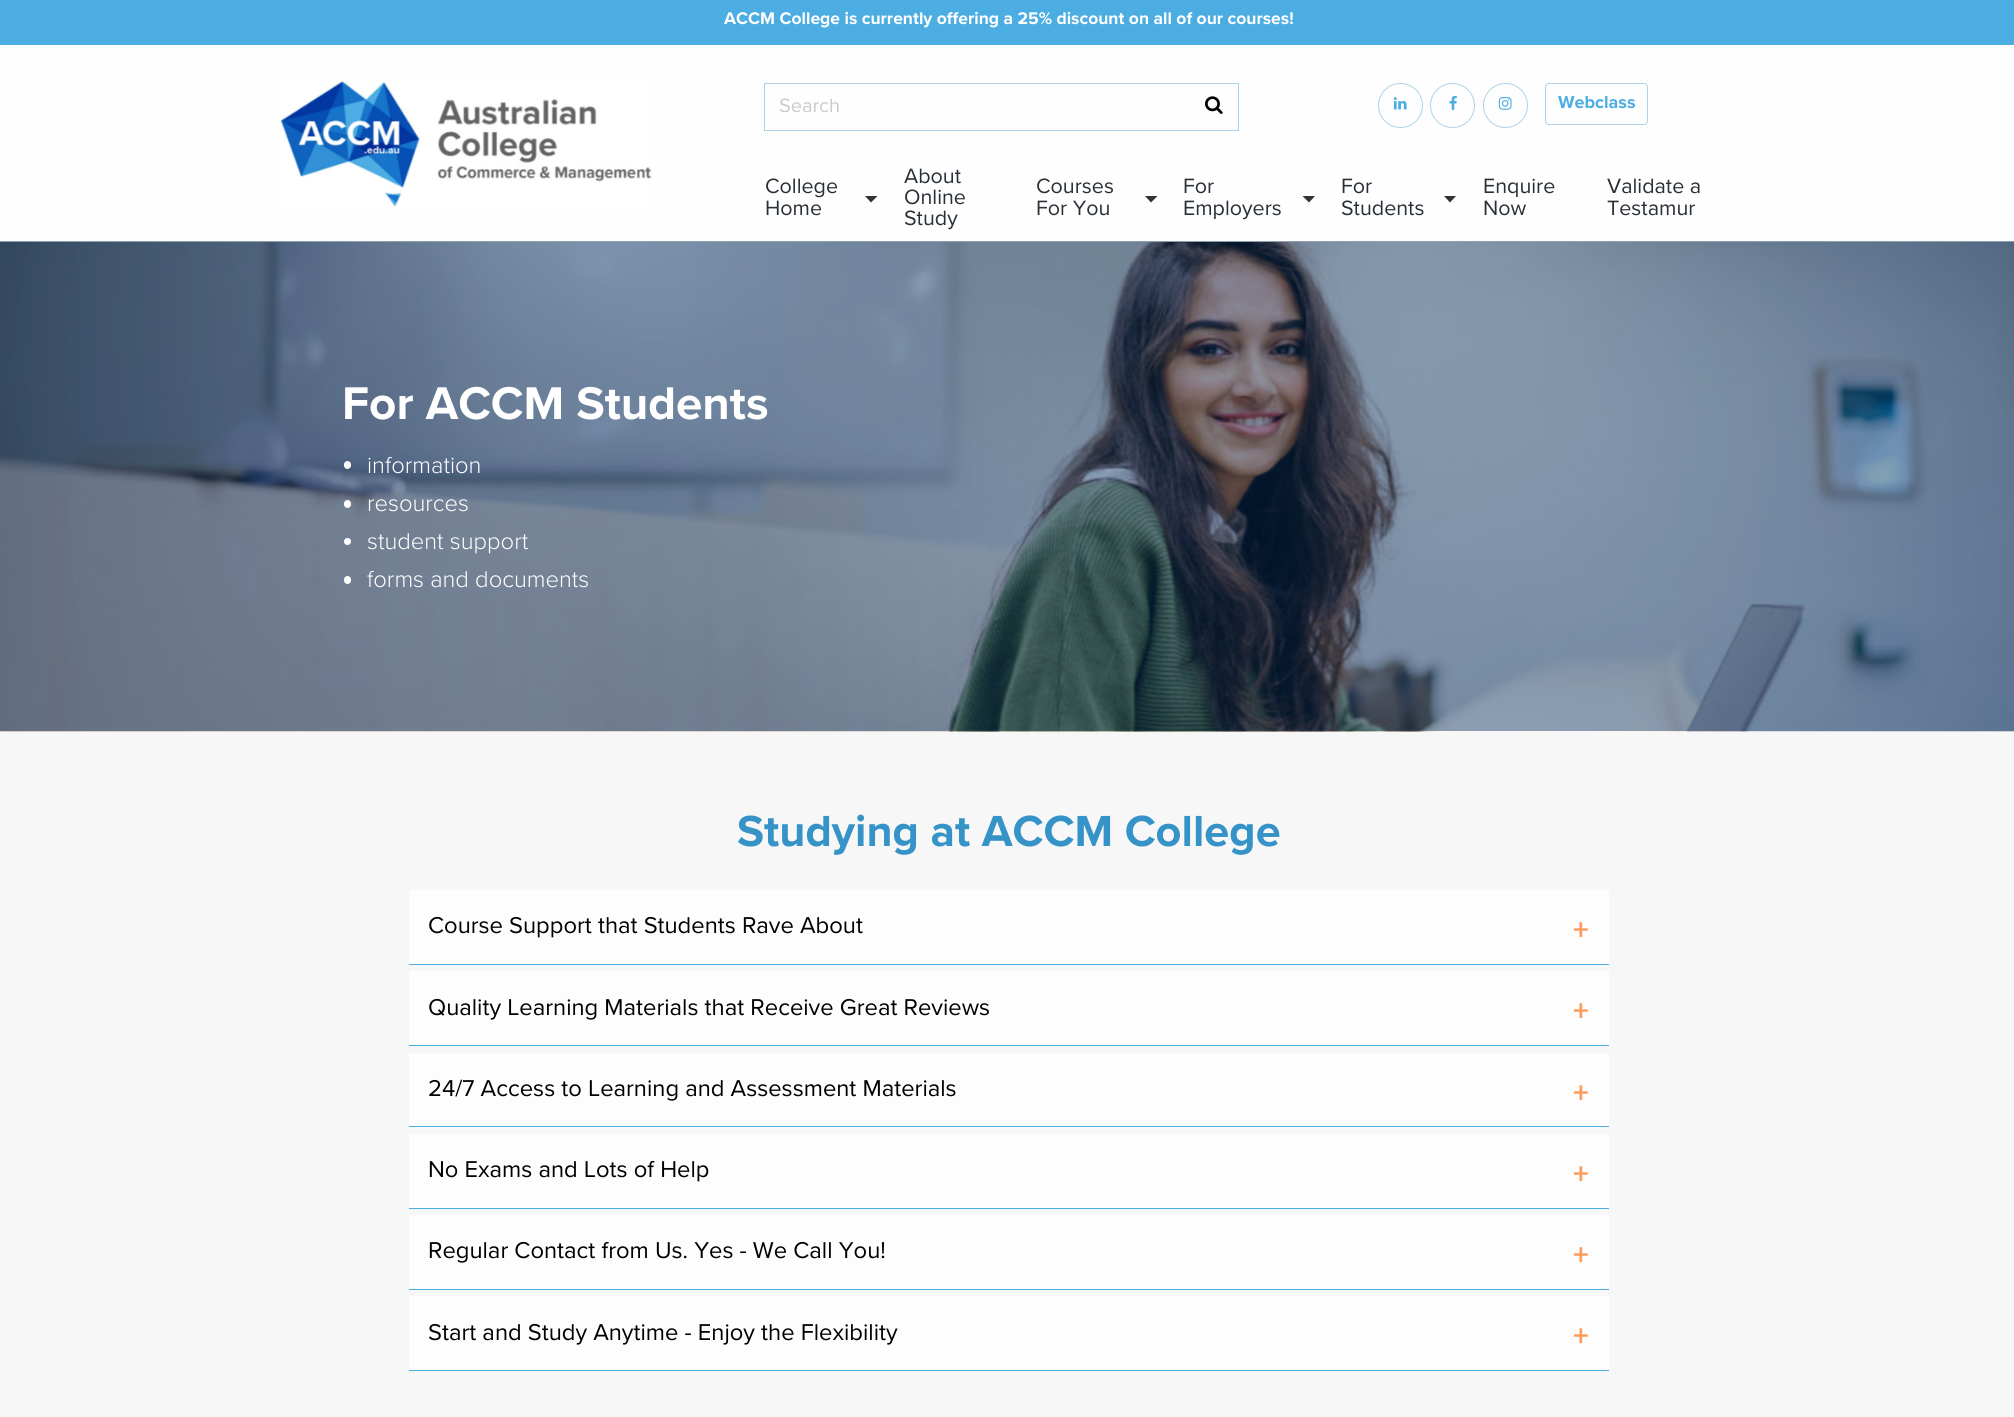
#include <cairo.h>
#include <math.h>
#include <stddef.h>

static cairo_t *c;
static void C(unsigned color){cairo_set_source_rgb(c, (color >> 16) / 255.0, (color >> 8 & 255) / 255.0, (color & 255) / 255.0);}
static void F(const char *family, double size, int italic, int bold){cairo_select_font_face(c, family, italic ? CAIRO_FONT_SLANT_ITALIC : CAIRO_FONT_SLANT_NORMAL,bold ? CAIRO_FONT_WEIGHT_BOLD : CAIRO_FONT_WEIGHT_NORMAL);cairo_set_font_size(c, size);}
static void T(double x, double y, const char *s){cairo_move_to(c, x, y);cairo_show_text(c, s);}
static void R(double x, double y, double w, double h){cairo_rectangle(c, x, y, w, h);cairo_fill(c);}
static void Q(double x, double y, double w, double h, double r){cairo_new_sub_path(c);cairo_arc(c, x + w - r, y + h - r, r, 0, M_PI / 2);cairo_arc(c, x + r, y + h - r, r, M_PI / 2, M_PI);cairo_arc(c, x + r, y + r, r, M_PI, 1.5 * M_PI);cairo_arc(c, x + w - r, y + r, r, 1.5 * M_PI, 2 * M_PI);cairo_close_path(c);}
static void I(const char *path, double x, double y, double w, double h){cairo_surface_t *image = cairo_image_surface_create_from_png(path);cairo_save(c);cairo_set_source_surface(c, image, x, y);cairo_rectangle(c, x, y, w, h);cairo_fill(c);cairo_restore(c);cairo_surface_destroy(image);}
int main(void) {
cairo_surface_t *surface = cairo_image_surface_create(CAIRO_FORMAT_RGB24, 2014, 1417);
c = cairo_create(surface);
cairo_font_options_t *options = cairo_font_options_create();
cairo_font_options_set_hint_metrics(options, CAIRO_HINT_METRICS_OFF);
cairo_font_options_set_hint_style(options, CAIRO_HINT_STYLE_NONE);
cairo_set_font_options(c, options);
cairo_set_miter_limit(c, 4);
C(0xfefefe);
cairo_paint(c);
C(0x8c9fb3);
R(0,241,2014,490);
C(0x4cade3);
R(0,0,2014,45);
F("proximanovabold",17.5,0,1);
C(0xffffff);
T(724,24,"ACCM College is currently offering a 25% discount on all of our courses!");
cairo_rectangle(c,764.5,83.5,474,47);
C(0xaed3e8);
cairo_set_line_width(c,1);
cairo_stroke(c);
F("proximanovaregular",20,0,0);
C(0xcacaca);
T(779,112,"Search");
I("1.png",1205,96,18,18);
cairo_arc(c,1400.5,105.5,22,0,2 * M_PI);
C(0xaed3e8);
cairo_stroke(c);
I("2.png",1393,97,14,13);
cairo_arc(c,1452.5,105.5,22,0,2 * M_PI);
cairo_stroke(c);
I("3.png",1449,95,8,15);
cairo_arc(c,1505.5,105.5,22,0,2 * M_PI);
cairo_stroke(c);
I("4.png",1498,97,14,13);
Q(1545.5,83.5,102,41,3.5);
cairo_stroke(c);
F("proximanovabold",18,0,1);
C(0x4cade3);
T(1558,108,"Webclass");
I("5.png",280,81,372,126);
F("proximanovaregular",21.5,0,0);
C(0x292f36);
T(765,193,"College");
T(765,215,"Home");
C(0x333333);
cairo_new_path(c);
cairo_move_to(c,865,196);
cairo_line_to(c,877.5,196);
cairo_line_to(c,871,202.5);
cairo_close_path(c);
cairo_fill(c);
C(0x292f36);
T(904,183,"About");
T(904,204,"Online");
T(904,225,"Study");
T(1036,193,"Courses");
T(1036,215,"For You");
C(0x333333);
cairo_new_path(c);
cairo_move_to(c,1145,196);
cairo_line_to(c,1157.5,196);
cairo_line_to(c,1151,202.5);
cairo_close_path(c);
cairo_fill(c);
C(0x292f36);
T(1183,193,"For");
T(1183,215,"Employers");
C(0x333333);
cairo_new_path(c);
cairo_move_to(c,1302.5,196);
cairo_line_to(c,1315,196);
cairo_line_to(c,1309,202.5);
cairo_close_path(c);
cairo_fill(c);
C(0x292f36);
T(1341,193,"For");
T(1341,215,"Students");
C(0x333333);
cairo_new_path(c);
cairo_move_to(c,1444,196);
cairo_line_to(c,1456,196);
cairo_line_to(c,1450,202.5);
cairo_close_path(c);
cairo_fill(c);
C(0x292f36);
T(1483,193,"Enquire");
T(1483,215,"Now");
T(1607,193,"Validate a");
T(1607,215,"Testamur");
C(0xf7f7f7);
R(0,731,2014,686);
I("6.png",0,242,2014,490);
F("proximanovabold",47.5,0,1);
C(0xffffff);
T(342,419,"For ACCM Students");
Q(344,461,7,8,3.5);
cairo_fill(c);
F("Proxima Nova Light",23.75,0,0);
T(367,473,"information");
Q(344,500,7,8,3.5);
cairo_fill(c);
T(367,511,"resources");
cairo_new_path(c);
cairo_arc(c,347.5,541.5,3.5,0,2 * M_PI);
cairo_fill(c);
T(367,549,"student support");
Q(344,576,7,8,3.5);
cairo_fill(c);
T(367,587,"forms and documents");
F("proximanovabold",45.1,0,1);
C(0x3593c7);
T(737,846,"Studying at ACCM College");
C(0xfdfdfd);
R(409,890,1200,74);
C(0x4cade3);
R(409,964,1200,1);
F("proximanovaregular",23.75,0,0);
C(0x000000);
T(428,933,"Course Support that Students Rave About");
F("proximanovabold",31,0,1);
C(0xff9c59);
T(1573,940,"+");
C(0xfdfdfd);
R(409,971,1200,74);
C(0x4cade3);
R(409,1045,1200,1);
F("proximanovaregular",23.75,0,0);
C(0x000000);
T(428,1015,"Quality Learning Materials that Receive Great Reviews");
F("proximanovabold",31,0,1);
C(0xff9c59);
T(1573,1021,"+");
C(0xfdfdfd);
R(409,1053,1200,75);
C(0x4cade3);
R(409,1126,1200,1);
F("proximanovaregular",23.75,0,0);
C(0x000000);
T(428,1096,"24/7 Access to Learning and Assessment Materials");
F("proximanovabold",31,0,1);
C(0xff9c59);
T(1573,1103,"+");
C(0xfdfdfd);
R(409,1134,1200,74);
C(0x4cade3);
R(409,1208,1200,1);
F("proximanovaregular",23.75,0,0);
C(0x000000);
T(428,1177,"No Exams and Lots of Help");
F("proximanovabold",31,0,1);
C(0xff9c59);
T(1573,1184,"+");
C(0xfdfdfd);
R(409,1215,1200,74);
C(0x4cade3);
R(409,1289,1200,1);
F("proximanovaregular",23.75,0,0);
C(0x000000);
T(428,1258,"Regular Contact from Us. Yes - We Call You!");
F("proximanovabold",31,0,1);
C(0xff9c59);
T(1573,1265,"+");
C(0xfdfdfd);
R(409,1296,1200,74);
C(0x4cade3);
R(409,1370,1200,1);
F("proximanovaregular",23.75,0,0);
C(0x000000);
T(428,1340,"Start and Study Anytime - Enjoy the Flexibility");
F("proximanovabold",31,0,1);
C(0xff9c59);
T(1573,1346,"+");
cairo_surface_write_to_png(surface, "o.png");
cairo_font_options_destroy(options);
cairo_destroy(c);
cairo_surface_destroy(surface);
return 0;
}
